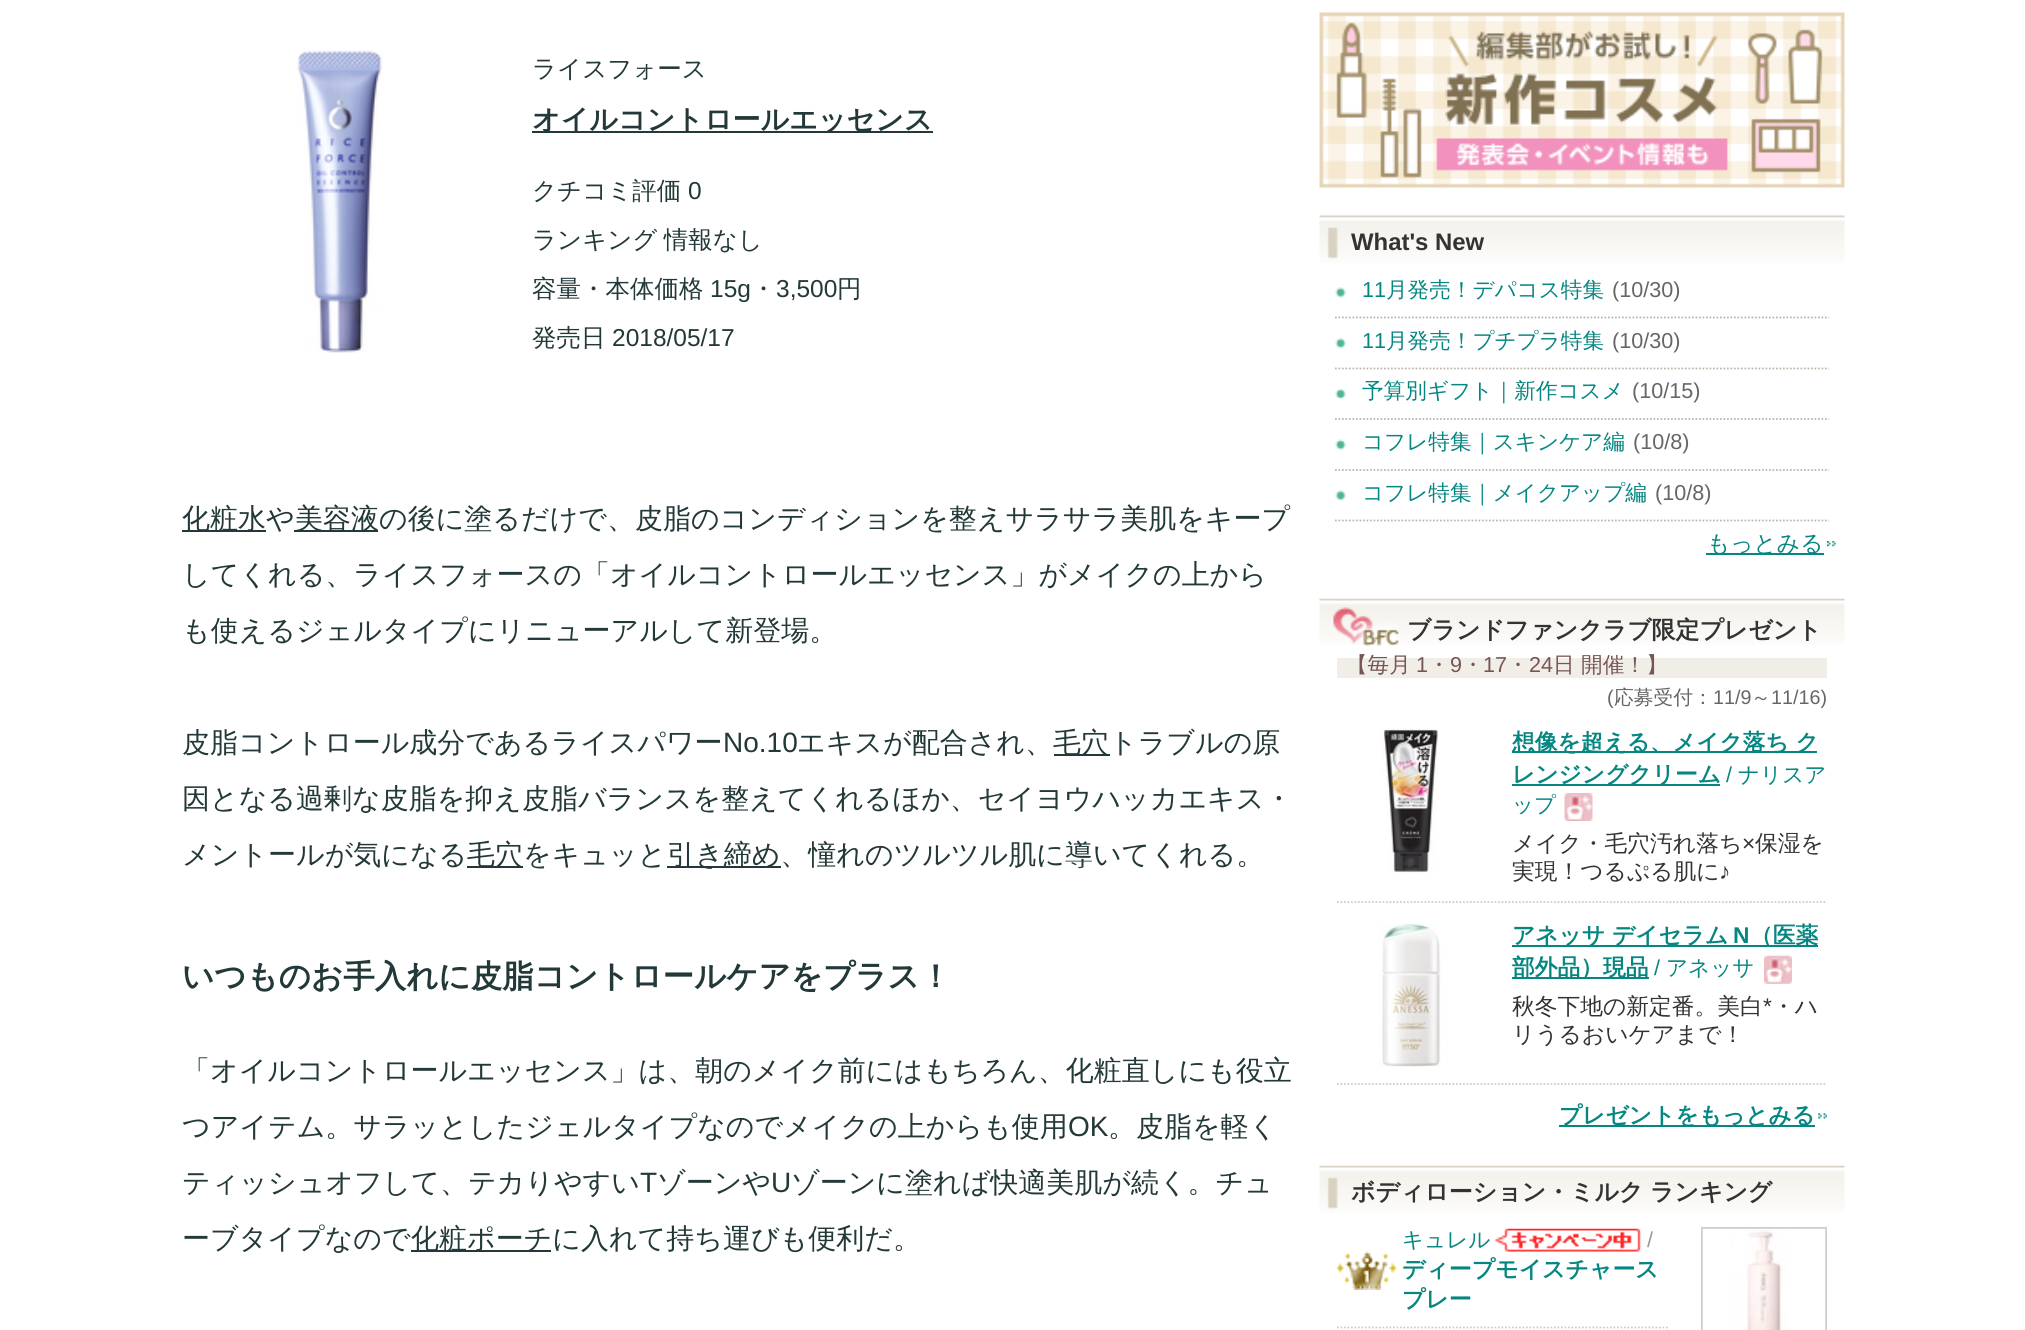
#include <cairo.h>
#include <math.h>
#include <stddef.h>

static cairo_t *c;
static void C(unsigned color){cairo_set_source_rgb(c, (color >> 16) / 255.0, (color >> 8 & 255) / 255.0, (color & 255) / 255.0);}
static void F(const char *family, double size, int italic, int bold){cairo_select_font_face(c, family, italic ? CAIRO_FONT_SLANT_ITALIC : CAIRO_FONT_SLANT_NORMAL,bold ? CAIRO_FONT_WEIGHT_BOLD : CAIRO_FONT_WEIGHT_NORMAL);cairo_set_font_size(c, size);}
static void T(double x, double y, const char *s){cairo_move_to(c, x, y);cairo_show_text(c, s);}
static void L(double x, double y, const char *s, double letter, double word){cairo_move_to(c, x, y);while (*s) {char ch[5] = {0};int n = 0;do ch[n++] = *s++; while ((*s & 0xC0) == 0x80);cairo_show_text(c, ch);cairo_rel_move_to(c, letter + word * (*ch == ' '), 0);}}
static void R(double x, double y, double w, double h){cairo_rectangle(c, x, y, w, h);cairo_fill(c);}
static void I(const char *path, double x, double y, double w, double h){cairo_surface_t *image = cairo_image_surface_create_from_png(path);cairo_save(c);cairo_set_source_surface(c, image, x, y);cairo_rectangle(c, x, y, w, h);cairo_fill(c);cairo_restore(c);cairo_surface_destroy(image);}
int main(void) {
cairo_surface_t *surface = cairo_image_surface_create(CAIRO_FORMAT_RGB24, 2025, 1330);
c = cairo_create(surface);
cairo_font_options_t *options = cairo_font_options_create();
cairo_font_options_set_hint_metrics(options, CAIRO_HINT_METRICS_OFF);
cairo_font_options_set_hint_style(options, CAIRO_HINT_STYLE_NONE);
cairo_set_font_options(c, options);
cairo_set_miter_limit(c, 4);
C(0xffffff);
cairo_paint(c);
I("1.png",297,50,88,303);
F("WenQuanYi Zen Hei Medium",24.5,0,0);
C(0x233838);
T(532,77,"ライスフォース");
R(532,131,401,2);
F("WenQuanYi Zen Hei",28,0,1);
T(532,129,"オイルコントロールエッセンス");
F("WenQuanYi Zen Hei Medium",24.5,0,0);
T(532,199,"クチコミ評価");
F("Liberation Sans",24.5,0,0);
T(688,199,"0");
F("WenQuanYi Zen Hei Medium",24.5,0,0);
L(532,248,"ランキング 情報なし",0,-1);
T(532,297,"容量・本体価格");
F("Liberation Sans",24.5,0,0);
T(710,297,"15g");
F("WenQuanYi Zen Hei Medium",24.5,0,0);
T(751,297,"・");
F("Liberation Sans",24.5,0,0);
T(776,297,"3,500");
F("WenQuanYi Zen Hei Medium",24.5,0,0);
T(837,297,"円");
T(532,346,"発売日");
F("Liberation Sans",24.5,0,0);
T(612,346,"2018/05/17");
R(182,530,84,2);
F("WenQuanYi Zen Hei Medium",28,0,0);
T(182,528,"化粧水や");
R(294,530,84,2);
T(295,528,"美容液の後に塗るだけで、皮脂のコンディションを整えサラサラ美肌をキープ");
T(182,584,"してくれる、ライスフォースの「オイルコントロールエッセンス」がメイクの上から");
T(182,640,"も使えるジェルタイプにリニューアルして新登場。");
T(182,752,"皮脂コントロール成分であるライスパワー");
F("Liberation Sans",28,0,0);
T(723,752,"No.10");
F("WenQuanYi Zen Hei Medium",28,0,0);
T(797,752,"エキスが配合され、");
R(1054,754,56,2);
T(1053,752,"毛穴トラブルの原");
T(182,808,"因となる過剰な皮脂を抑え皮脂バランスを整えてくれるほか、セイヨウハッカエキス・");
T(182,864,"メントールが気になる");
R(467,866,56,2);
T(467,864,"毛穴をキュッと");
R(667,866,114,2);
T(667,864,"引き締め、憧れのツルツル肌に導いてくれる。");
F("WenQuanYi Zen Hei",31.5,0,1);
T(182,987,"いつものお手入れに皮脂コントロールケアをプラス！");
F("WenQuanYi Zen Hei Medium",28,0,0);
T(182,1080,"「オイルコントロールエッセンス」は、朝のメイク前にはもちろん、化粧直しにも役立");
T(182,1136,"つアイテム。サラッとしたジェルタイプなのでメイクの上からも使用");
F("Liberation Sans",28,0,0);
T(1068,1136,"OK");
F("WenQuanYi Zen Hei Medium",28,0,0);
T(1108,1136,"。皮脂を軽く");
T(182,1192,"ティッシュオフして、テカりやすい");
F("Liberation Sans",28,0,0);
T(640,1192,"T");
F("WenQuanYi Zen Hei Medium",28,0,0);
T(657,1192,"ゾーンや");
F("Liberation Sans",28,0,0);
T(771,1192,"U");
F("WenQuanYi Zen Hei Medium",28,0,0);
T(791,1192,"ゾーンに塗れば快適美肌が続く。チュ");
T(182,1248,"ーブタイプなので");
R(411,1250,140,2);
T(411,1248,"化粧ポーチに入れて持ち運びも便利だ。");
I("2.png",1319,12,526,176);
I("3.png",1319,215,526,48);
F("Liberation Sans",23.9,0,1);
C(0x333333);
T(1351,250,"What's New");
I("4.png",1335,287,11,11);
cairo_new_path(c);
cairo_move_to(c,1335,317.5);
cairo_line_to(c,1829,317.5);
C(0xbfb7ac);
cairo_set_line_width(c,1.8);
cairo_set_dash(c,(double[]){1.75,1.75},2,0);
cairo_stroke(c);
F("Liberation Sans",21.6,0,0);
C(0x068681);
T(1362,297,"11");
F("WenQuanYi Zen Hei Medium",21.6,0,0);
T(1386,297,"月発売！デパコス特集");
F("Liberation Sans",21.6,0,0);
C(0x666666);
T(1612,297,"(10/30)");
I("5.png",1335,338,11,11);
cairo_new_path(c);
cairo_move_to(c,1335,368.5);
cairo_line_to(c,1829,368.5);
C(0xbfb7ac);
cairo_stroke(c);
C(0x068681);
T(1362,348,"11");
F("WenQuanYi Zen Hei Medium",21.6,0,0);
T(1386,348,"月発売！プチプラ特集");
F("Liberation Sans",21.6,0,0);
C(0x666666);
T(1612,348,"(10/30)");
I("6.png",1335,388,11,12);
cairo_new_path(c);
cairo_move_to(c,1335,419);
cairo_line_to(c,1829,419);
C(0xbfb7ac);
cairo_stroke(c);
F("WenQuanYi Zen Hei Medium",21.6,0,0);
C(0x068681);
T(1362,398,"予算別ギフト｜新作コスメ");
F("Liberation Sans",21.6,0,0);
C(0x666666);
T(1632,398,"(10/15)");
I("7.png",1335,439,11,11);
cairo_new_path(c);
cairo_move_to(c,1335,470);
cairo_line_to(c,1829,470);
C(0xbfb7ac);
cairo_stroke(c);
F("WenQuanYi Zen Hei Medium",21.6,0,0);
C(0x068681);
T(1362,449,"コフレ特集｜スキンケア編");
F("Liberation Sans",21.6,0,0);
C(0x666666);
T(1633,449,"(10/8)");
I("4.png",1335,490,11,11);
cairo_new_path(c);
cairo_move_to(c,1335,520.5);
cairo_line_to(c,1829,520.5);
C(0xbfb7ac);
cairo_stroke(c);
F("WenQuanYi Zen Hei Medium",21.6,0,0);
C(0x068681);
T(1362,500,"コフレ特集｜メイクアップ編");
F("Liberation Sans",21.6,0,0);
C(0x666666);
T(1655,500,"(10/8)");
C(0x068681);
R(1706,553,118,2);
F("WenQuanYi Zen Hei Medium",22.75,0,0);
T(1707,551,"もっとみる");
I("8.png",1827,541,9,6);
I("9.png",1319,598,526,47);
I("10.png",1333,607,66,39);
F("WenQuanYi Zen Hei",23.9,0,1);
C(0x333333);
T(1407,638,"ブランドファンクラブ限定プレゼント");
C(0xf1eee8);
R(1337,658,490,20);
F("WenQuanYi Zen Hei Medium",21.6,0,0);
C(0x775555);
T(1346,672,"【毎月");
F("Liberation Sans",21.6,0,0);
T(1416,672,"1");
F("WenQuanYi Zen Hei Medium",21.6,0,0);
T(1428,672,"・");
F("Liberation Sans",21.6,0,0);
T(1450,672,"9");
F("WenQuanYi Zen Hei Medium",21.6,0,0);
T(1462,672,"・");
F("Liberation Sans",21.6,0,0);
T(1483,672,"17");
F("WenQuanYi Zen Hei Medium",21.6,0,0);
T(1507,672,"・");
F("Liberation Sans",21.6,0,0);
T(1529,672,"24");
F("WenQuanYi Zen Hei Medium",21.6,0,0);
T(1553,672,"日 開催！】");
F("Liberation Sans",19.75,0,0);
C(0x666666);
T(1607,704,"(");
F("WenQuanYi Zen Hei Medium",19.75,0,0);
T(1614,704,"応募受付：");
F("Liberation Sans",19.75,0,0);
T(1713,704,"11/9");
F("WenQuanYi Zen Hei Medium",19.75,0,0);
T(1751,704,"～");
F("Liberation Sans",19.75,0,0);
T(1771,704,"11/16)");
cairo_new_path(c);
cairo_move_to(c,1337,902);
cairo_line_to(c,1827,902);
C(0xcccccc);
cairo_stroke(c);
I("11.png",1382,728,56,145);
C(0x068681);
R(1512,751,305,2);
F("WenQuanYi Zen Hei",22.75,0,1);
T(1512,750,"想像を超える、メイク落ち ク");
R(1512,784,208,2);
T(1512,782,"レンジングクリーム");
F("Liberation Sans",21.6,0,0);
T(1726,782,"/");
F("WenQuanYi Zen Hei Medium",21.6,0,0);
T(1738,782,"ナリスア");
T(1512,812,"ップ");
I("12.png",1564,793,29,28);
F("WenQuanYi Zen Hei Medium",22.75,0,0);
C(0x333333);
T(1512,851,"メイク・毛穴汚れ落ち");
F("Liberation Sans",22.75,0,0);
T(1742,851,"×");
F("WenQuanYi Zen Hei Medium",22.75,0,0);
T(1755,851,"保湿を");
T(1512,879,"実現！つるぷる肌に");
F("Liberation Sans",22.75,0,0);
T(1719,879,"♪");
cairo_new_path(c);
cairo_move_to(c,1337,1084);
cairo_line_to(c,1827,1084);
C(0xcccccc);
cairo_stroke(c);
I("13.png",1379,923,62,144);
C(0x068681);
R(1512,945,306,2);
F("WenQuanYi Zen Hei",22.75,0,1);
T(1512,943,"アネッサ デイセラム");
F("Liberation Sans",22.75,0,1);
T(1733,943,"N");
F("WenQuanYi Zen Hei",22.75,0,1);
T(1750,943,"（医薬");
R(1512,977,137,2);
T(1512,975,"部外品）現品");
F("Liberation Sans",21.6,0,0);
T(1654,975,"/");
F("WenQuanYi Zen Hei Medium",21.6,0,0);
T(1666,975,"アネッサ");
I("14.png",1764,955,28,29);
F("WenQuanYi Zen Hei Medium",22.75,0,0);
C(0x333333);
T(1512,1014,"秋冬下地の新定番。美白");
F("Liberation Sans",22.75,0,0);
T(1763,1014,"*");
F("WenQuanYi Zen Hei Medium",22.75,0,0);
T(1772,1014,"・ハ");
T(1512,1042,"リうるおいケアまで！");
C(0x068681);
R(1559,1125,256,2);
F("WenQuanYi Zen Hei",22.75,0,1);
T(1559,1123,"プレゼントをもっとみる");
I("15.png",1818,1113,9,6);
I("16.png",1319,1165,526,48);
F("WenQuanYi Zen Hei",23.9,0,1);
C(0x333333);
T(1351,1200,"ボディローション・ミルク");
T(1650,1200,"ランキング");
I("17.png",1337,1251,60,39);
cairo_new_path(c);
cairo_move_to(c,1337,1327.5);
cairo_line_to(c,1669.5,1327.5);
C(0xcccccc);
cairo_stroke(c);
F("WenQuanYi Zen Hei Medium",21.6,0,0);
C(0x068681);
T(1402,1247,"キュレル");
I("18.png",1494,1228,148,24);
F("Liberation Sans",21.6,0,0);
C(0x999999);
T(1647,1247,"/");
F("WenQuanYi Zen Hei",22.9,0,1);
C(0x068681);
T(1402,1277,"ディープモイスチャース");
T(1402,1307,"プレー");
cairo_rectangle(c,1702,1228,124,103);
C(0xcccccc);
cairo_set_line_width(c,2);
cairo_set_dash(c,NULL,0,0);
cairo_stroke(c);
I("19.png",1702,1228,124,102);
cairo_surface_write_to_png(surface, "o.png");
cairo_font_options_destroy(options);
cairo_destroy(c);
cairo_surface_destroy(surface);
return 0;
}
